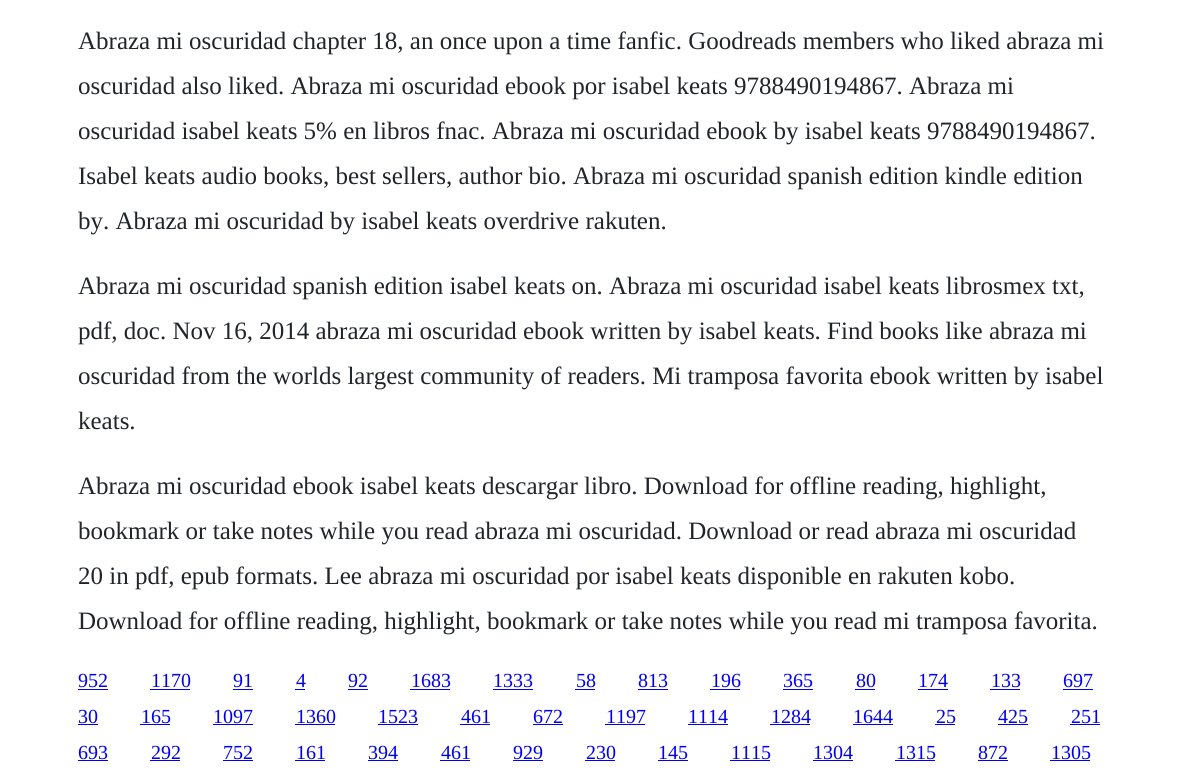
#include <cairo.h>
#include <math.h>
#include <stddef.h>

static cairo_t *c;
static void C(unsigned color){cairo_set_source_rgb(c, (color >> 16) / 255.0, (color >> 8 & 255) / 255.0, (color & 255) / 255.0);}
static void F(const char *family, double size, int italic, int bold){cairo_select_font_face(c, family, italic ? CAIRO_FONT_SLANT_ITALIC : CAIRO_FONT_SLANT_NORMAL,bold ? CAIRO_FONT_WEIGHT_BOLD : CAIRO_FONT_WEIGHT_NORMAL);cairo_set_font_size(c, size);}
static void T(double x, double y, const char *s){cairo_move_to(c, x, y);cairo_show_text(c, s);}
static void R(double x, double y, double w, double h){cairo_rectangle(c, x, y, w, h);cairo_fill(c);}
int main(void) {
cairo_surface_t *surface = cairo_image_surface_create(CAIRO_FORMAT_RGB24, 1185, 772);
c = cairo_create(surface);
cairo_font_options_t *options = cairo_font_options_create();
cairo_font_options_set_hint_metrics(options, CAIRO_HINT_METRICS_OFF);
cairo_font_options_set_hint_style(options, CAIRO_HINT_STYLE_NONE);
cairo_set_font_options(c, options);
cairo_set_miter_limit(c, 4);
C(0xffffff);
cairo_paint(c);
F("Liberation Serif",25,0,0);
C(0x212529);
T(78,49,"Abraza mi oscuridad chapter 18, an once upon a time fanfic. Goodreads members who liked abraza mi");
T(78,94,"oscuridad also liked. Abraza mi oscuridad ebook por isabel keats 9788490194867. Abraza mi");
T(78,139,"oscuridad isabel keats 5% en libros fnac. Abraza mi oscuridad ebook by isabel keats 9788490194867.");
T(78,184,"Isabel keats audio books, best sellers, author bio. Abraza mi oscuridad spanish edition kindle edition");
T(78,229,"by. Abraza mi oscuridad by isabel keats overdrive rakuten.");
T(78,294,"Abraza mi oscuridad spanish edition isabel keats on. Abraza mi oscuridad isabel keats librosmex txt,");
T(78,339,"pdf, doc. Nov 16, 2014 abraza mi oscuridad ebook written by isabel keats. Find books like abraza mi");
T(78,384,"oscuridad from the worlds largest community of readers. Mi tramposa favorita ebook written by isabel");
T(78,429,"keats.");
T(78,494,"Abraza mi oscuridad ebook isabel keats descargar libro. Download for offline reading, highlight,");
T(78,539,"bookmark or take notes while you read abraza mi oscuridad. Download or read abraza mi oscuridad");
T(78,584,"20 in pdf, epub formats. Lee abraza mi oscuridad por isabel keats disponible en rakuten kobo.");
T(78,629,"Download for offline reading, highlight, bookmark or take notes while you read mi tramposa favorita.");
F("Liberation Serif",20,0,0);
C(0x0000ee);
T(78,687,"952");
R(78,689,30,1);
T(151,687,"1170");
R(150,689,40,1);
T(233,687,"91");
R(233,689,20,1);
T(296,687,"4");
R(295,689,10,1);
T(348,687,"92");
R(348,689,20,1);
T(411,687,"1683");
R(410,689,40,1);
T(493,687,"1333");
R(493,689,40,1);
T(576,687,"58");
R(575,689,20,1);
T(638,687,"813");
R(638,689,30,1);
T(711,687,"196");
R(710,689,30,1);
T(783,687,"365");
R(783,689,30,1);
T(856,687,"80");
R(855,689,20,1);
T(918,687,"174");
R(918,689,30,1);
T(991,687,"133");
R(990,689,30,1);
T(1063,687,"697");
R(1063,689,30,1);
T(78,723,"30");
R(78,724,20,1);
T(141,723,"165");
R(140,724,30,1);
T(213,723,"1097");
R(213,724,40,1);
T(296,723,"1360");
R(295,724,40,1);
T(378,723,"1523");
R(378,724,40,1);
T(461,723,"461");
R(460,724,30,1);
T(533,723,"672");
R(533,724,30,1);
T(606,723,"1197");
R(605,724,40,1);
T(688,723,"1114");
R(688,724,40,1);
T(771,723,"1284");
R(770,724,40,1);
T(853,723,"1644");
R(853,724,40,1);
T(936,723,"25");
R(935,724,20,1);
T(998,723,"425");
R(998,724,30,1);
T(1071,723,"251");
R(1070,724,30,1);
T(78,759,"693");
R(78,760,30,1);
T(151,759,"292");
R(150,760,30,1);
T(223,759,"752");
R(223,760,30,1);
T(296,759,"161");
R(295,760,30,1);
T(368,759,"394");
R(368,760,30,1);
T(441,759,"461");
R(440,760,30,1);
T(513,759,"929");
R(513,760,30,1);
T(586,759,"230");
R(585,760,30,1);
T(658,759,"145");
R(658,760,30,1);
T(731,759,"1115");
R(730,760,40,1);
T(813,759,"1304");
R(813,760,40,1);
T(896,759,"1315");
R(895,760,40,1);
T(978,759,"872");
R(978,760,30,1);
T(1051,759,"1305");
R(1050,760,40,1);
cairo_surface_write_to_png(surface, "o.png");
cairo_font_options_destroy(options);
cairo_destroy(c);
cairo_surface_destroy(surface);
return 0;
}
